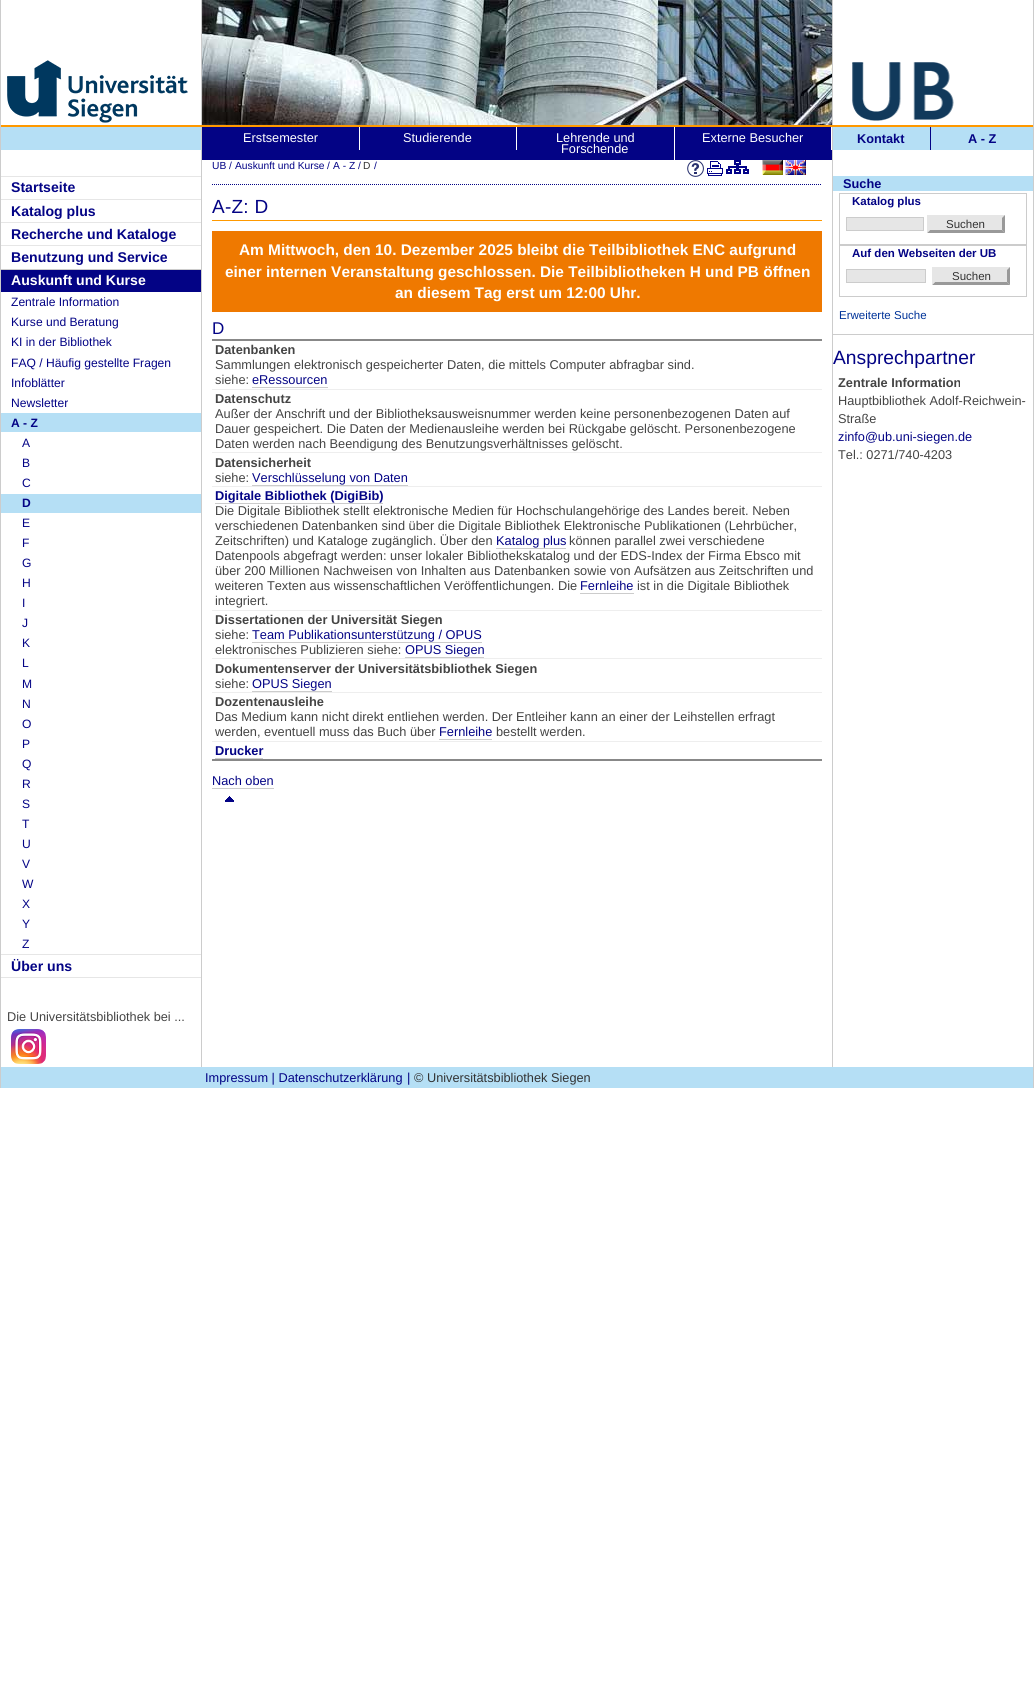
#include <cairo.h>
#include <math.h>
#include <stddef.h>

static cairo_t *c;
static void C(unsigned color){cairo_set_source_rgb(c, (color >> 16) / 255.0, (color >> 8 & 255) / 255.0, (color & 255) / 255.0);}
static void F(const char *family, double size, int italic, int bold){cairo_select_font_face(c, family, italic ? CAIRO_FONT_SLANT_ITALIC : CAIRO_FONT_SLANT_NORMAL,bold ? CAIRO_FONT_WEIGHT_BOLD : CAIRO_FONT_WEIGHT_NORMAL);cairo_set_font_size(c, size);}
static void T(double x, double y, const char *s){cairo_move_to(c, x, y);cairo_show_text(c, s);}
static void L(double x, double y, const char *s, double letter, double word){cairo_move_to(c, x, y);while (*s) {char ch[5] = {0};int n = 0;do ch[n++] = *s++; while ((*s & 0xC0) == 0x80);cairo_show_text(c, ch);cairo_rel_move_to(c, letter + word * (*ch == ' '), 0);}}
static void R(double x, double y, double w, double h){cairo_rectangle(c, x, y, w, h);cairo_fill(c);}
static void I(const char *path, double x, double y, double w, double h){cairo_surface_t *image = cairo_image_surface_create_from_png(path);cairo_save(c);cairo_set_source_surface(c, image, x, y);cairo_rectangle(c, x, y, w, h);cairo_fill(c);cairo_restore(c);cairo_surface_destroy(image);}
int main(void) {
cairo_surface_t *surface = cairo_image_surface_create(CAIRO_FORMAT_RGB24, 1034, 1699);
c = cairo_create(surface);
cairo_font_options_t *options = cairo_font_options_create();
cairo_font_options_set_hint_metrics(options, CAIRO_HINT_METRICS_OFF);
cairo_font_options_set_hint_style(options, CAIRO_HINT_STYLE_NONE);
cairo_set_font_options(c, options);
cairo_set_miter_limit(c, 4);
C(0xffffff);
cairo_paint(c);
C(0xcccccc);
R(1033,0,1,1088);
R(0,0,1,1088);
R(832,0,1,1067);
R(201,0,1,1067);
C(0xff9900);
R(1,125,1032,2);
I("1.png",7,60,181,63);
C(0xb5dff5);
R(1,127,200,23);
C(0xe6e6e6);
R(1,977,200,1);
R(1,176,200,1);
F("Liberation Sans",14.1,0,1);
C(0x030385);
T(11,192,"Startseite");
C(0xe6e6e6);
R(1,199,200,1);
C(0x030385);
T(11,216,"Katalog plus");
C(0xe6e6e6);
R(1,222,200,1);
C(0x030385);
T(11,239,"Recherche und Kataloge");
C(0xe6e6e6);
R(1,245,200,1);
C(0x030385);
T(11,262,"Benutzung und Service");
R(1,270,200,22);
C(0xcccccc);
R(1,269,200,1);
C(0xffffff);
T(11,285,"Auskunft und Kurse");
F("Liberation Sans",12.1,0,0);
C(0x030385);
T(11,306,"Zentrale Information");
T(11,326,"Kurse und Beratung");
T(11,346,"KI in der Bibliothek");
T(11,367,"FAQ / Häufig gestellte Fragen");
T(11,387,"Infoblätter");
T(11,407,"Newsletter");
C(0xb5dff5);
R(1,413,200,19);
F("Liberation Sans",12.1,0,1);
C(0x030385);
T(11,427,"A - Z");
F("Liberation Sans",12.1,0,0);
T(22,447,"A");
T(22,467,"B");
T(22,487,"C");
C(0xb5dff5);
R(1,494,200,19);
F("Liberation Sans",12.1,0,1);
C(0x030385);
T(22,507,"D");
F("Liberation Sans",12.1,0,0);
T(22,527,"E");
T(22,547,"F");
T(22,567,"G");
T(22,587,"H");
T(22,607,"I");
T(22,627,"J");
T(22,647,"K");
T(22,667,"L");
T(22,688,"M");
T(22,708,"N");
T(22,728,"O");
T(22,748,"P");
T(22,768,"Q");
T(22,788,"R");
T(22,808,"S");
T(22,828,"T");
T(22,848,"U");
T(22,868,"V");
T(22,888,"W");
T(22,908,"X");
T(22,928,"Y");
T(22,948,"Z");
C(0xe6e6e6);
R(1,954,200,1);
F("Liberation Sans",14.1,0,1);
C(0x030385);
T(11,971,"Über uns");
F("Liberation Sans",12.75,0,0);
C(0x444444);
T(7,1021,"Die Universitätsbibliothek bei ...");
I("2.png",11,1029,35,35);
I("3.png",202,0,630,125);
C(0x030385);
R(202,127,630,33);
C(0xffffff);
R(359,127,1,23);
T(243,142,"Erstsemester");
R(516,127,1,23);
T(403,142,"Studierende");
R(674,127,1,33);
T(556,142,"Lehrende und");
T(561,153,"Forschende");
R(831,127,1,23);
T(702,142,"Externe Besucher");
cairo_new_path(c);
cairo_move_to(c,212,184.5);
cairo_line_to(c,822,184.5);
C(0x030385);
cairo_set_line_width(c,1);
cairo_set_dash(c,(double[]){1,1},2,0);
cairo_stroke(c);
F("Liberation Sans",10.25,0,0);
T(212,169,"UB");
T(229,169,"/");
T(235,169,"Auskunft und Kurse");
T(327,169,"/");
T(333,169,"A - Z");
T(358,169,"/");
C(0x333333);
T(363,169,"D");
C(0x030385);
T(374,169,"/");
I("4.png",687,160,17,17);
I("5.png",707,161,16,15);
I("6.png",726,160,23,14);
I("7.png",762,160,21,15);
I("8.png",785,160,21,15);
C(0xff9900);
R(212,220,610,1);
F("Liberation Sans",19,0,0);
C(0x030385);
L(212,213,"A-Z: D",.25,0);
C(0xef7900);
R(212,231,610,81);
F("Liberation Sans",15.4,0,1);
C(0xffffff);
T(239,255,"Am Mittwoch, den 10. Dezember 2025 bleibt die Teilbibliothek ENC aufgrund");
T(225,277,"einer internen Veranstaltung geschlossen. Die Teilbibliotheken H und PB öffnen");
T(395,298,"an diesem Tag erst um 12:00 Uhr.");
F("Liberation Sans",17,0,0);
C(0x030385);
T(212,334,"D");
C(0x888888);
R(212,339,610,2);
R(212,759,610,2);
C(0xeeeeee);
R(212,389,610,1);
F("Liberation Sans",12.8,0,1);
C(0x444444);
T(215,354,"Datenbanken");
F("Liberation Sans",12.8,0,0);
T(215,369,"Sammlungen elektronisch gespeicherter Daten, die mittels Computer abfragbar sind.");
T(215,384,"siehe:");
C(0x030385);
T(252,384,"eRessourcen");
C(0xcccccc);
R(252,387,76,1);
C(0xeeeeee);
R(212,452,610,1);
F("Liberation Sans",12.8,0,1);
C(0x444444);
T(215,403,"Datenschutz");
F("Liberation Sans",12.8,0,0);
T(215,418,"Außer der Anschrift und der Bibliotheksausweisnummer werden keine personenbezogenen Daten auf");
T(215,433,"Dauer gespeichert. Die Daten der Medienausleihe werden bei Rückgabe gelöscht. Personenbezogene");
T(215,448,"Daten werden nach Beendigung des Benutzungsverhältnisses gelöscht.");
C(0xeeeeee);
R(212,486,610,1);
F("Liberation Sans",12.8,0,1);
C(0x444444);
T(215,467,"Datensicherheit");
F("Liberation Sans",12.8,0,0);
T(215,482,"siehe:");
C(0x030385);
T(252,482,"Verschlüsselung von Daten");
C(0xcccccc);
R(252,485,156,1);
C(0xeeeeee);
R(212,610,610,1);
F("Liberation Sans",12.8,0,1);
C(0x030385);
T(215,500,"Digitale Bibliothek (DigiBib)");
C(0xcccccc);
R(215,503,168,1);
F("Liberation Sans",12.8,0,0);
C(0x444444);
T(215,515,"Die Digitale Bibliothek stellt elektronische Medien für Hochschulangehörige des Landes bereit. Neben");
T(215,530,"verschiedenen Datenbanken sind über die Digitale Bibliothek Elektronische Publikationen (Lehrbücher,");
T(215,545,"Zeitschriften) und Kataloge zugänglich. Über den");
C(0x030385);
T(496,545,"Katalog plus");
C(0xcccccc);
R(496,548,70,1);
C(0x444444);
T(569,545,"können parallel zwei verschiedene");
T(215,560,"Datenpools abgefragt werden: unser lokaler Bibliothekskatalog und der EDS-Index der Firma Ebsco mit");
T(215,575,"über 200 Millionen Nachweisen von Inhalten aus Datenbanken sowie von Aufsätzen aus Zeitschriften und");
T(215,590,"weiteren Texten aus wissenschaftlichen Veröffentlichungen. Die");
C(0x030385);
T(580,590,"Fernleihe");
C(0xcccccc);
R(580,593,54,1);
C(0x444444);
T(637,590,"ist in die Digitale Bibliothek");
T(215,605,"integriert.");
C(0xeeeeee);
R(212,658,610,1);
F("Liberation Sans",12.8,0,1);
C(0x444444);
T(215,624,"Dissertationen der Universität Siegen");
F("Liberation Sans",12.8,0,0);
T(215,639,"siehe:");
C(0x030385);
T(252,639,"Team Publikationsunterstützung / OPUS");
C(0xcccccc);
R(252,642,230,1);
C(0x444444);
T(215,654,"elektronisches Publizieren siehe:");
C(0x030385);
T(405,654,"OPUS Siegen");
C(0xcccccc);
R(405,657,79,1);
C(0xeeeeee);
R(212,692,610,1);
F("Liberation Sans",12.8,0,1);
C(0x444444);
T(215,673,"Dokumentenserver der Universitätsbibliothek Siegen");
F("Liberation Sans",12.8,0,0);
T(215,688,"siehe:");
C(0x030385);
T(252,688,"OPUS Siegen");
C(0xcccccc);
R(252,691,80,1);
C(0xeeeeee);
R(212,741,610,1);
F("Liberation Sans",12.8,0,1);
C(0x444444);
T(215,706,"Dozentenausleihe");
F("Liberation Sans",12.8,0,0);
T(215,721,"Das Medium kann nicht direkt entliehen werden. Der Entleiher kann an einer der Leihstellen erfragt");
T(215,736,"werden, eventuell muss das Buch über");
C(0x030385);
T(439,736,"Fernleihe");
C(0xcccccc);
R(439,739,53,1);
C(0x444444);
T(496,736,"bestellt werden.");
F("Liberation Sans",12.8,0,1);
C(0x030385);
T(215,755,"Drucker");
C(0xcccccc);
R(215,758,48,1);
F("Liberation Sans",12.75,0,0);
C(0x030385);
T(212,785,"Nach oben");
C(0xcccccc);
R(212,788,62,1);
I("9.png",225,796,9,6);
I("10.png",852,62,102,59);
C(0xb5dff5);
R(833,127,200,23);
C(0x030385);
R(930,127,1,23);
F("Liberation Sans",12.75,0,1);
T(857,143,"Kontakt");
T(968,143,"A - Z");
C(0xb5dff5);
R(833,176,200,15);
C(0x030385);
T(843,188,"Suche");
C(0xcccccc);
R(833,334,200,1);
cairo_rectangle(c,839.5,193.5,187,51);
cairo_set_dash(c,NULL,0,0);
cairo_stroke(c);
F("Liberation Sans",11.5,0,1);
C(0x030385);
T(852,205,"Katalog plus");
C(0xe6e6e6);
cairo_rectangle(c,846.5,217.5,77,13);
cairo_fill_preserve(c);
C(0xcccccc);
cairo_stroke(c);
C(0xe6e6e6);
R(927,215,78,18);
C(0x999999);
cairo_new_path(c);
cairo_move_to(c,1005,215);
cairo_line_to(c,1005,233);
cairo_line_to(c,1002,230);
cairo_line_to(c,1002,218);
cairo_close_path(c);
cairo_fill(c);
cairo_new_path(c);
cairo_move_to(c,1005,233);
cairo_line_to(c,927,233);
cairo_line_to(c,930,230);
cairo_line_to(c,1002,230);
cairo_close_path(c);
cairo_fill(c);
C(0xe6e6e6);
cairo_new_path(c);
cairo_move_to(c,927,233);
cairo_line_to(c,927,215);
cairo_line_to(c,930,218);
cairo_line_to(c,930,230);
cairo_close_path(c);
cairo_fill(c);
F("Liberation Sans",11.5,0,0);
C(0x333333);
T(946,228,"Suchen");
cairo_rectangle(c,839.5,245.5,187,51);
C(0xcccccc);
cairo_stroke(c);
F("Liberation Sans",11.5,0,1);
C(0x030385);
T(852,257,"Auf den Webseiten der UB");
C(0xe6e6e6);
cairo_rectangle(c,846.5,269.5,79,13);
cairo_fill_preserve(c);
C(0xcccccc);
cairo_stroke(c);
C(0xe6e6e6);
R(932,267,78,18);
C(0x999999);
cairo_new_path(c);
cairo_move_to(c,1010,267);
cairo_line_to(c,1010,285);
cairo_line_to(c,1007,282);
cairo_line_to(c,1007,270);
cairo_close_path(c);
cairo_fill(c);
cairo_new_path(c);
cairo_move_to(c,1010,285);
cairo_line_to(c,932,285);
cairo_line_to(c,935,282);
cairo_line_to(c,1007,282);
cairo_close_path(c);
cairo_fill(c);
C(0xe6e6e6);
cairo_new_path(c);
cairo_move_to(c,932,285);
cairo_line_to(c,932,267);
cairo_line_to(c,935,270);
cairo_line_to(c,935,282);
cairo_close_path(c);
cairo_fill(c);
F("Liberation Sans",11.5,0,0);
C(0x333333);
T(952,280,"Suchen");
C(0x003399);
T(839,319,"Erweiterte Suche");
F("Liberation Sans",19.25,0,0);
C(0x030385);
T(833,364,"Ansprechpartner");
F("Liberation Sans",12.75,0,1);
C(0x444444);
T(838,387,"Zentrale Information");
F("Liberation Sans",12.75,0,0);
T(838,405,"Hauptbibliothek Adolf-Reichwein-");
T(838,423,"Straße");
C(0x030385);
T(838,441,"zinfo@ub.uni-siegen.de");
C(0x444444);
T(838,459,"Tel.: 0271/740-4203");
C(0xb5dff5);
R(1,1067,1032,21);
C(0x030385);
T(205,1082,"Impressum | Datenschutzerklärung");
F("Liberation Sans",13,0,0);
T(407,1082,"|");
F("Liberation Sans",12.75,0,0);
C(0x333333);
T(414,1082,"© Universitätsbibliothek Siegen");
cairo_surface_write_to_png(surface, "o.png");
cairo_font_options_destroy(options);
cairo_destroy(c);
cairo_surface_destroy(surface);
return 0;
}
